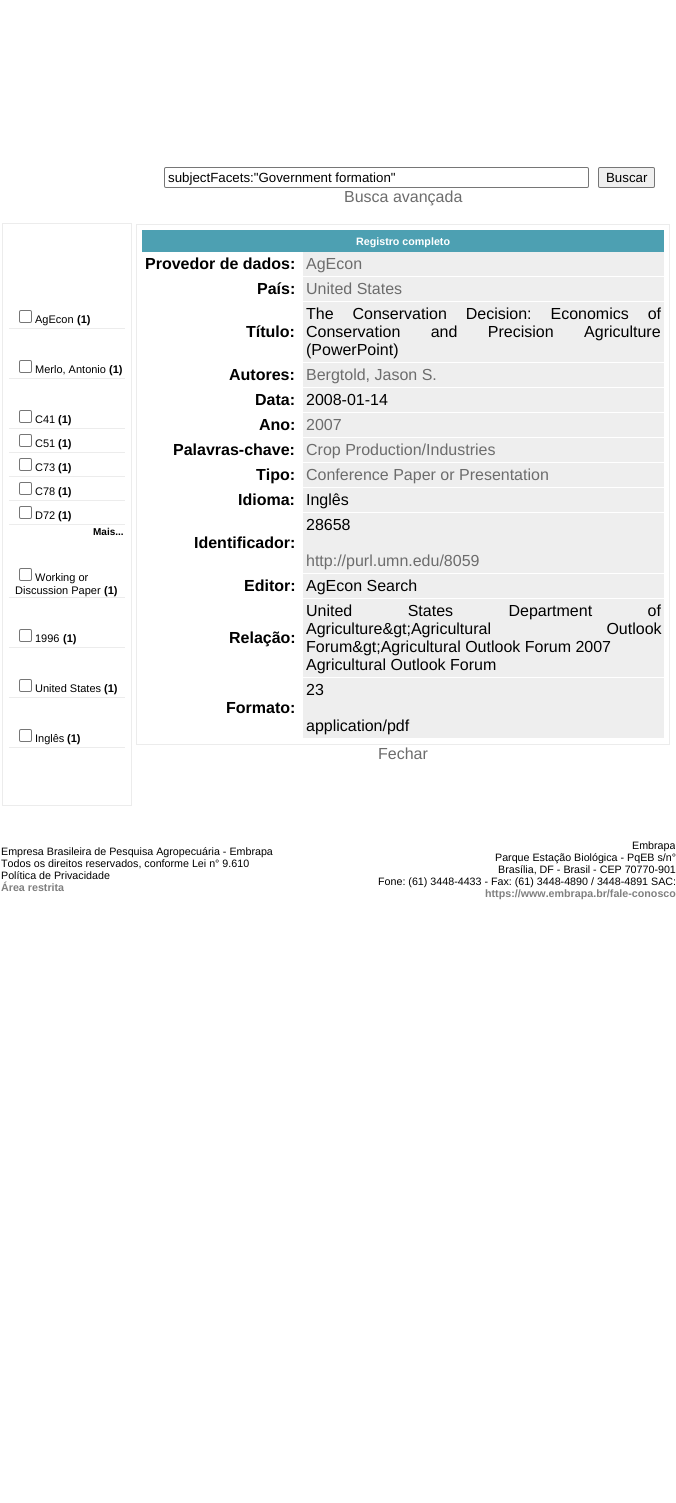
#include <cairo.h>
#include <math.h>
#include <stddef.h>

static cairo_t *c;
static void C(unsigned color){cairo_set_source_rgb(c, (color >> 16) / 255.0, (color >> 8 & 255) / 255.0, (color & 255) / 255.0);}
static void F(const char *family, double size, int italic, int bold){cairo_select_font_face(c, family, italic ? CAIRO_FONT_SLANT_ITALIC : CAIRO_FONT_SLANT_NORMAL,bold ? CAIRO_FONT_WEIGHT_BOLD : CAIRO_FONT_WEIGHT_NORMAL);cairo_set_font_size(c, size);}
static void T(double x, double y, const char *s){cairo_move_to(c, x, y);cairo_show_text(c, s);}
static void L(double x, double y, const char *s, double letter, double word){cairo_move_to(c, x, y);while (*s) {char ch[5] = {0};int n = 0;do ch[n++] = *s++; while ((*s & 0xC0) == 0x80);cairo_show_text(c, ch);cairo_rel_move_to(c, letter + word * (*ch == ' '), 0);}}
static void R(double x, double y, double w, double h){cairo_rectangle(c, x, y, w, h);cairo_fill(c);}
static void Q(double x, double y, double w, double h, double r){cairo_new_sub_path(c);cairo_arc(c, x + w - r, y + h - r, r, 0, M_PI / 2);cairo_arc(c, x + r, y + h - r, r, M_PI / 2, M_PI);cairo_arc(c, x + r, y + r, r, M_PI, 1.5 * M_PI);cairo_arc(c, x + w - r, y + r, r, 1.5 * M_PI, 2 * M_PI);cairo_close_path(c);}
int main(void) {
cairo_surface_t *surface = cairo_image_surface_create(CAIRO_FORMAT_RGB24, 676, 1503);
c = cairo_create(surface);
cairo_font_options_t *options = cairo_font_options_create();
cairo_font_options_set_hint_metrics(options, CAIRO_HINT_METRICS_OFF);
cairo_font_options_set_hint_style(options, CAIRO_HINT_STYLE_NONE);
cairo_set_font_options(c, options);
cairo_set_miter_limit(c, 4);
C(0xffffff);
cairo_paint(c);
Q(164.5,167.5,424,20,1.5);
C(0x767676);
cairo_set_line_width(c,1);
cairo_stroke(c);
F("Liberation Sans",13.3,0,0);
C(0x000000);
T(168,182,"subjectFacets:\"Government formation\"");
C(0xefefef);
Q(598.5,167.5,56,20,1.5);
cairo_fill_preserve(c);
C(0x767676);
cairo_stroke(c);
C(0x000000);
T(606,182,"Buscar");
F("Liberation Sans",16,0,0);
C(0x6c6c6c);
T(344,202,"Busca avançada");
C(0xececec);
R(2,223,130,583);
C(0xffffff);
R(3,224,128,581);
C(0xececec);
R(9,328,116,1);
Q(19.5,310.5,12,12,1.5);
C(0x767676);
cairo_stroke(c);
F("Liberation Sans",11,0,0);
C(0x000000);
T(35,323,"AgEcon");
F("Liberation Sans",11,0,1);
T(77,323,"(1)");
C(0xececec);
R(9,378,116,1);
Q(19.5,360.5,12,12,1.5);
C(0x767676);
cairo_stroke(c);
F("Liberation Sans",11,0,0);
C(0x000000);
T(35,373,"Merlo, Antonio");
F("Liberation Sans",11,0,1);
T(109,373,"(1)");
C(0xececec);
R(9,428,116,1);
Q(19.5,410.5,12,12,1.5);
C(0x767676);
cairo_stroke(c);
F("Liberation Sans",11,0,0);
C(0x000000);
T(35,423,"C41");
F("Liberation Sans",11,0,1);
T(58,423,"(1)");
C(0xececec);
R(9,452,116,1);
Q(19.5,434.5,12,12,1.5);
C(0x767676);
cairo_stroke(c);
F("Liberation Sans",11,0,0);
C(0x000000);
T(35,447,"C51");
F("Liberation Sans",11,0,1);
T(58,447,"(1)");
C(0xececec);
R(9,476,116,1);
Q(19.5,458.5,12,12,1.5);
C(0x767676);
cairo_stroke(c);
F("Liberation Sans",11,0,0);
C(0x000000);
T(35,471,"C73");
F("Liberation Sans",11,0,1);
T(58,471,"(1)");
C(0xececec);
R(9,500,116,1);
Q(19.5,482.5,12,12,1.5);
C(0x767676);
cairo_stroke(c);
F("Liberation Sans",11,0,0);
C(0x000000);
T(35,495,"C78");
F("Liberation Sans",11,0,1);
T(58,495,"(1)");
C(0xececec);
R(9,524,116,1);
Q(19.5,506.5,12,12,1.5);
C(0x767676);
cairo_stroke(c);
F("Liberation Sans",11,0,0);
C(0x000000);
T(35,519,"D72");
F("Liberation Sans",11,0,1);
T(58,519,"(1)");
F("Liberation Sans",10,0,1);
T(93,535,"Mais...");
C(0xececec);
R(9,597,116,1);
Q(19.5,568.5,12,12,1.5);
C(0x767676);
cairo_stroke(c);
F("Liberation Sans",11,0,0);
C(0x000000);
T(35,581,"Working or");
T(15,594,"Discussion Paper");
F("Liberation Sans",11,0,1);
T(104,594,"(1)");
C(0xececec);
R(9,647,116,1);
Q(19.5,629.5,12,12,1.5);
C(0x767676);
cairo_stroke(c);
F("Liberation Sans",11,0,0);
C(0x000000);
T(35,642,"1996");
F("Liberation Sans",11,0,1);
T(63,642,"(1)");
C(0xececec);
R(9,697,116,1);
Q(19.5,679.5,12,12,1.5);
C(0x767676);
cairo_stroke(c);
F("Liberation Sans",11,0,0);
C(0x000000);
T(35,692,"United States");
F("Liberation Sans",11,0,1);
T(104,692,"(1)");
C(0xececec);
R(9,747,116,1);
Q(19.5,729.5,12,12,1.5);
C(0x767676);
cairo_stroke(c);
F("Liberation Sans",11,0,0);
C(0x000000);
T(35,742,"Inglês");
F("Liberation Sans",11,0,1);
T(67,742,"(1)");
cairo_rectangle(c,136.5,224.5,533,520);
C(0xececec);
cairo_stroke(c);
C(0x4da0b2);
R(142,230,522,22);
F("Liberation Sans",10.7,0,1);
C(0xffffff);
T(356,245,"Registro completo");
F("Liberation Sans",16,0,1);
C(0x000000);
T(145,269,"Provedor de dados:");
C(0xeeeeee);
R(303,252,361,24);
F("Liberation Sans",16,0,0);
C(0x6c6c6c);
T(306,269,"AgEcon");
F("Liberation Sans",16,0,1);
C(0x000000);
T(257,294,"País:");
C(0xeeeeee);
R(303,277,361,24);
F("Liberation Sans",16,0,0);
C(0x6c6c6c);
T(306,294,"United States");
F("Liberation Sans",16,0,1);
C(0x000000);
T(246,337,"Título:");
C(0xeeeeee);
R(303,302,361,60);
F("Liberation Sans",16,0,0);
C(0x000000);
L(306,319,"The Conservation Decision: Economics of",0,14.5);
L(306,337,"Conservation and Precision Agriculture",0,26);
T(306,355,"(PowerPoint)");
F("Liberation Sans",16,0,1);
T(229,380,"Autores:");
C(0xeeeeee);
R(303,363,361,24);
F("Liberation Sans",16,0,0);
C(0x6c6c6c);
T(306,380,"Bergtold, Jason S.");
F("Liberation Sans",16,0,1);
C(0x000000);
T(255,405,"Data:");
C(0xeeeeee);
R(303,388,361,24);
F("Liberation Sans",16,0,0);
C(0x000000);
T(306,405,"2008-01-14");
F("Liberation Sans",16,0,1);
T(259,430,"Ano:");
C(0xeeeeee);
R(303,413,361,24);
F("Liberation Sans",16,0,0);
C(0x6c6c6c);
T(306,430,"2007");
F("Liberation Sans",16,0,1);
C(0x000000);
T(173,455,"Palavras-chave:");
C(0xeeeeee);
R(303,438,361,24);
F("Liberation Sans",16,0,0);
C(0x6c6c6c);
T(306,455,"Crop Production/Industries");
F("Liberation Sans",16,0,1);
C(0x000000);
T(256,480,"Tipo:");
C(0xeeeeee);
R(303,463,361,24);
F("Liberation Sans",16,0,0);
C(0x6c6c6c);
T(306,480,"Conference Paper or Presentation");
F("Liberation Sans",16,0,1);
C(0x000000);
T(238,505,"Idioma:");
C(0xeeeeee);
R(303,488,361,24);
F("Liberation Sans",16,0,0);
C(0x000000);
T(306,505,"Inglês");
F("Liberation Sans",16,0,1);
T(194,548,"Identificador:");
C(0xeeeeee);
R(303,513,361,60);
F("Liberation Sans",16,0,0);
C(0x000000);
T(306,530,"28658");
C(0x6c6c6c);
T(306,566,"http://purl.umn.edu/8059");
F("Liberation Sans",16,0,1);
C(0x000000);
T(244,591,"Editor:");
C(0xeeeeee);
R(303,574,361,24);
F("Liberation Sans",16,0,0);
C(0x000000);
T(306,591,"AgEcon Search");
F("Liberation Sans",16,0,1);
T(229,643,"Relação:");
C(0xeeeeee);
R(303,599,361,78);
F("Liberation Sans",16,0,0);
C(0x000000);
L(306,616,"United States Department of",0,51);
L(306,634,"Agriculture&gt;Agricultural Outlook",0,111);
T(306,652,"Forum&gt;Agricultural Outlook Forum 2007");
T(306,670,"Agricultural Outlook Forum");
F("Liberation Sans",16,0,1);
T(226,713,"Formato:");
C(0xeeeeee);
R(303,678,361,60);
F("Liberation Sans",16,0,0);
C(0x000000);
T(306,695,"23");
T(306,731,"application/pdf");
C(0x6c6c6c);
T(378,759,"Fechar");
F("Liberation Sans",10.7,0,0);
C(0x000000);
T(1,855,"Empresa Brasileira de Pesquisa Agropecuária - Embrapa");
T(1,867,"Todos os direitos reservados, conforme Lei n° 9.610");
T(1,879,"Política de Privacidade");
F("Liberation Sans",10.7,0,1);
C(0x808080);
T(1,891,"Área restrita");
F("Liberation Sans",10.7,0,0);
C(0x000000);
T(632,849,"Embrapa");
T(495,861,"Parque Estação Biológica - PqEB s/n°");
T(498,873,"Brasília, DF - Brasil - CEP 70770-901");
T(378,885,"Fone: (61) 3448-4433 - Fax: (61) 3448-4890 / 3448-4891 SAC:");
F("Liberation Sans",10.7,0,1);
C(0x808080);
T(485,897,"https://www.embrapa.br/fale-conosco");
cairo_surface_write_to_png(surface, "o.png");
cairo_font_options_destroy(options);
cairo_destroy(c);
cairo_surface_destroy(surface);
return 0;
}
